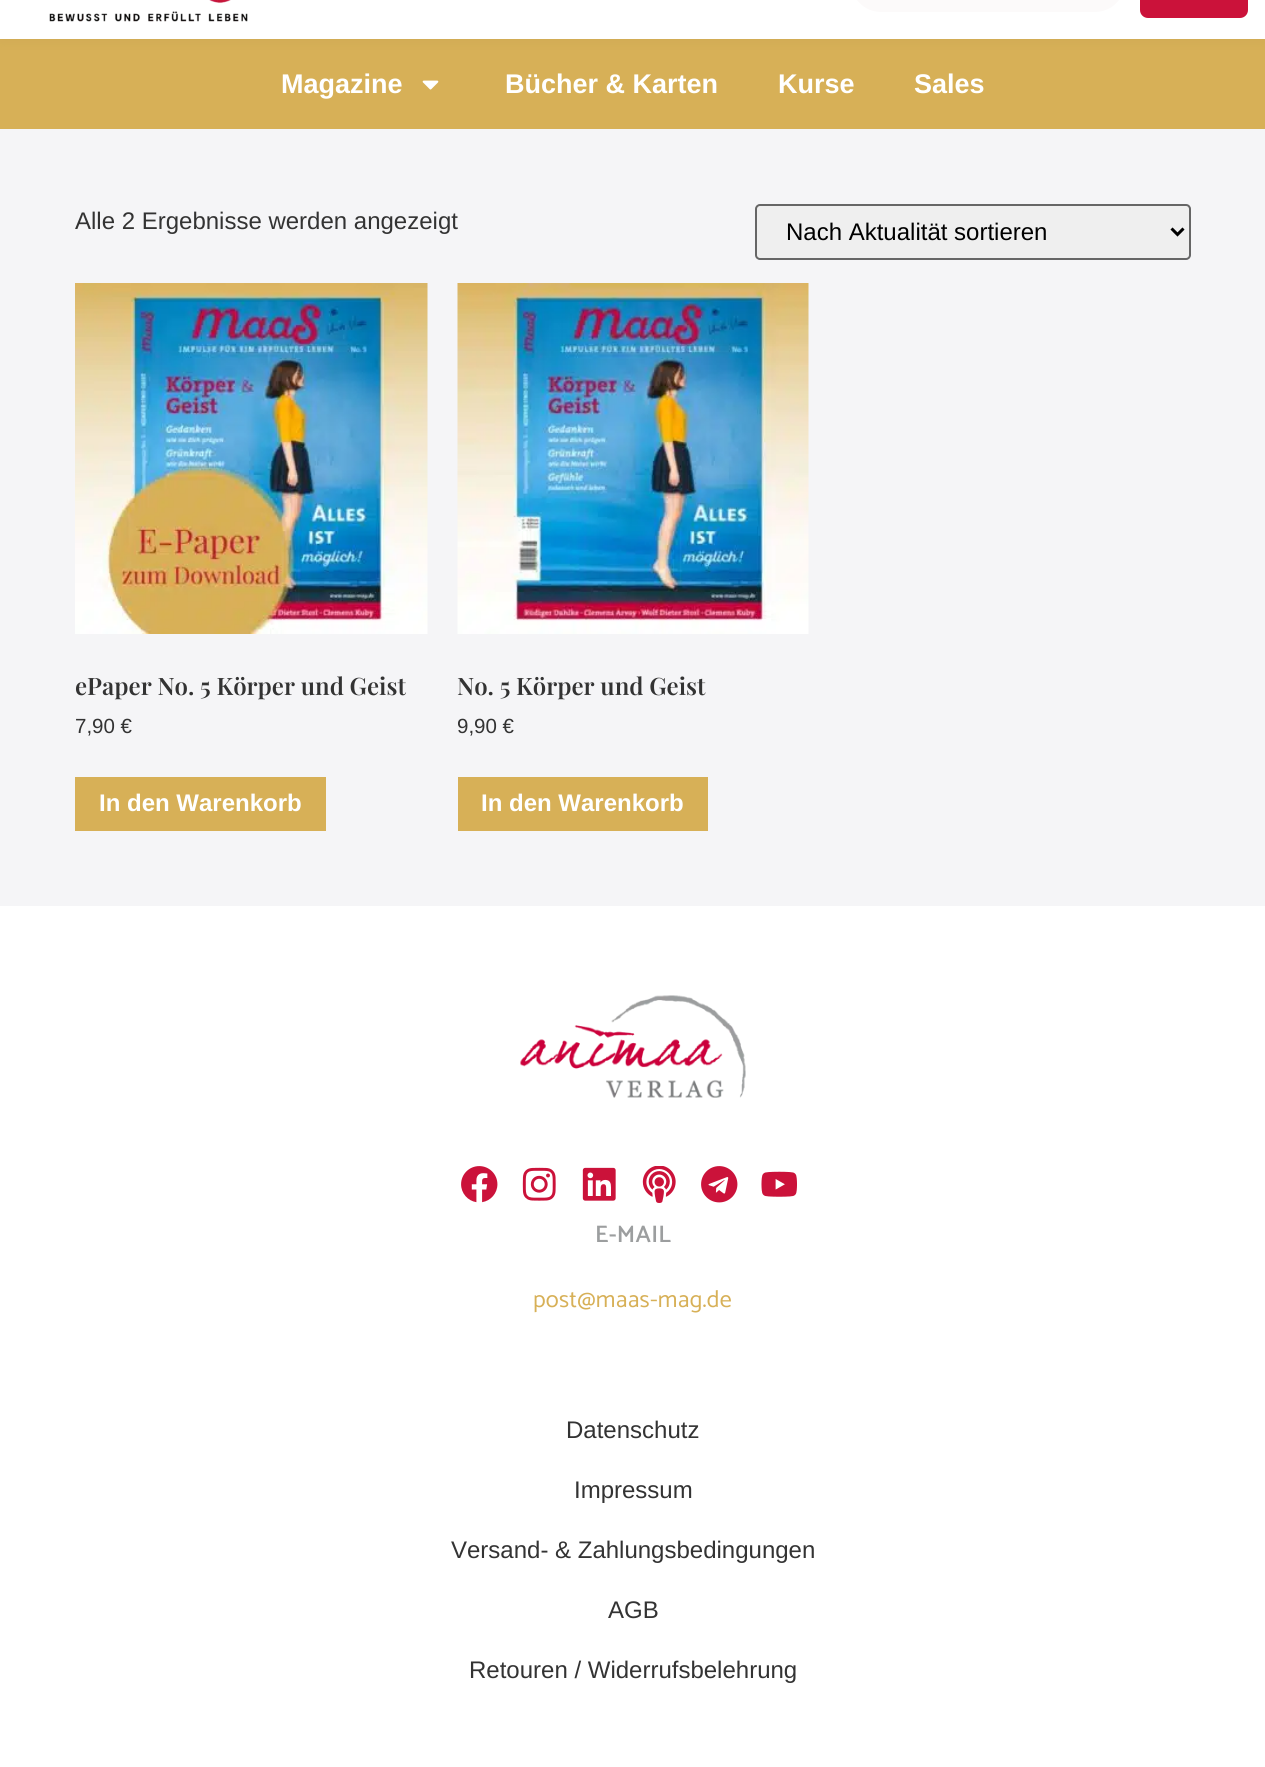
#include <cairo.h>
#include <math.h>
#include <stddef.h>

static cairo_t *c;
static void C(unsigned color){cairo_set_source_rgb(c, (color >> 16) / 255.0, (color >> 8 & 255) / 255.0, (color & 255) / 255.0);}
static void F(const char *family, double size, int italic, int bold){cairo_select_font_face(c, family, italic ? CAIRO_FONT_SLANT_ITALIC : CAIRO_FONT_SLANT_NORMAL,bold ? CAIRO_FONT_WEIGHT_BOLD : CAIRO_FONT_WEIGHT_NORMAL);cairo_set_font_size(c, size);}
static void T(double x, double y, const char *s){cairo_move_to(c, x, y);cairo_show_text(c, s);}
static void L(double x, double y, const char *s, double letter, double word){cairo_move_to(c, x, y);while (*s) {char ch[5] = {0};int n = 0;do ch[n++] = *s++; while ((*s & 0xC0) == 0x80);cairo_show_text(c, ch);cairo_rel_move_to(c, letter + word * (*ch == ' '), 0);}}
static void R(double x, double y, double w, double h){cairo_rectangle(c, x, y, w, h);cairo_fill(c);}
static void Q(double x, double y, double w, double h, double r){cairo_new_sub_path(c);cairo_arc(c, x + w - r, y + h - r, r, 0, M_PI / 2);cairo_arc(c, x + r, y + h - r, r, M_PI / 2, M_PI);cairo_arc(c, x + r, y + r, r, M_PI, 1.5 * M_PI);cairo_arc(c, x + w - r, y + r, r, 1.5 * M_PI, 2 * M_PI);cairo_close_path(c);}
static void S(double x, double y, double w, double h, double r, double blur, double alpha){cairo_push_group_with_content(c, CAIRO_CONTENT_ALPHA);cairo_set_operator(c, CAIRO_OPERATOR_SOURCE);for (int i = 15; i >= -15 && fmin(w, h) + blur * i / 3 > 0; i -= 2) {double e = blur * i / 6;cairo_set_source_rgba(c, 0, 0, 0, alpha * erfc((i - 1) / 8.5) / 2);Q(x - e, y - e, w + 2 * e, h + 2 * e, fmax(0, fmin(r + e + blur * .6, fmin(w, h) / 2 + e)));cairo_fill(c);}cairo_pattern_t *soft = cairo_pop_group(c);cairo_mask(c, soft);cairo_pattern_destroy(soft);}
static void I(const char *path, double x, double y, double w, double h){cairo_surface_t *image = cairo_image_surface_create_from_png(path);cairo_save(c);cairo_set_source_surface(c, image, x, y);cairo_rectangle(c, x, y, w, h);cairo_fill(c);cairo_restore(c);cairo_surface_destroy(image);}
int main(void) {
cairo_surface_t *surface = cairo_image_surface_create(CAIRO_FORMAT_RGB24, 1265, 1767);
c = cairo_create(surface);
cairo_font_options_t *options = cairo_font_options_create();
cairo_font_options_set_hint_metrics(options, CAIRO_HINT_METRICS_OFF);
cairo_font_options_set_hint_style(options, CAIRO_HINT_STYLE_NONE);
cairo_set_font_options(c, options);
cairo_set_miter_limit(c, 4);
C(0xf5f5f7);
cairo_paint(c);
C(0xd7b057);
R(0,39,1265,90);
C(0x000000);
S(0,-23,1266,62,0,7.5,.05);
C(0xffffff);
R(0,0,1265,39);
I("1.png",49,0,199,22);
C(0xfcfafa);
Q(851,-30,274,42,30);
cairo_fill(c);
C(0xcb123a);
Q(1140,-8,108,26,8);
cairo_fill(c);
F("Liberation Sans",27,0,1);
C(0xffffff);
T(281,93,"Magazine");
I("2.png",422,80,17,10);
T(505,93,"Bücher & Karten");
T(778,93,"Kurse");
T(914,93,"Sales");
F("Liberation Sans",24,0,0);
C(0x333333);
T(75,229,"Alle 2 Ergebnisse werden angezeigt");
C(0xefefef);
Q(756,205,434,54,4);
cairo_fill_preserve(c);
C(0x666666);
cairo_stroke(c);
cairo_new_path(c);
cairo_move_to(c,1171.5,228.5);
cairo_line_to(c,1177.5,234.5);
cairo_line_to(c,1183.5,228.5);
C(0x000000);
cairo_set_line_width(c,3);
cairo_stroke(c);
T(786,240,"Nach Aktualität sortieren");
I("3.png",75,283,353,351);
F("Playfair Display SemiBold",24,0,0);
C(0x333333);
T(75,695,"ePaper No. 5 Körper und Geist");
F("Liberation Sans",20.5,0,0);
T(75,733,"7,90 €");
C(0xd7b057);
R(75,777,251,54);
F("Liberation Sans",24,0,1);
C(0xffffff);
T(99,811,"In den Warenkorb");
I("4.png",457,283,352,351);
F("Playfair Display SemiBold",24,0,0);
C(0x333333);
T(457,695,"No. 5 Körper und Geist");
F("Liberation Sans",20.5,0,0);
T(457,733,"9,90 €");
C(0xd7b057);
R(458,777,250,54);
F("Liberation Sans",24,0,1);
C(0xffffff);
T(481,811,"In den Warenkorb");
R(0,906,1265,861);
I("5.png",520,995,226,103);
I("6.png",461,1166,37,37);
I("7.png",522,1167,34,34);
I("8.png",582,1167,34,34);
I("9.png",642,1166,34,37);
I("10.png",701,1166,37,37);
I("11.png",761,1171,36,26);
F("Catamaran SemiBold",24,0,0);
C(0x9c9e9f);
L(595,1242,"E-MAIL",.25,0);
F("Catamaran",24,0,0);
C(0xd7b057);
L(533,1307,"post@maas-mag.de",.25,0);
F("Liberation Sans",24,0,0);
C(0x333333);
T(566,1438,"Datenschutz");
T(574,1498,"Impressum");
T(451,1558,"Versand- & Zahlungsbedingungen");
T(608,1618,"AGB");
T(469,1678,"Retouren / Widerrufsbelehrung");
cairo_surface_write_to_png(surface, "o.png");
cairo_font_options_destroy(options);
cairo_destroy(c);
cairo_surface_destroy(surface);
return 0;
}
